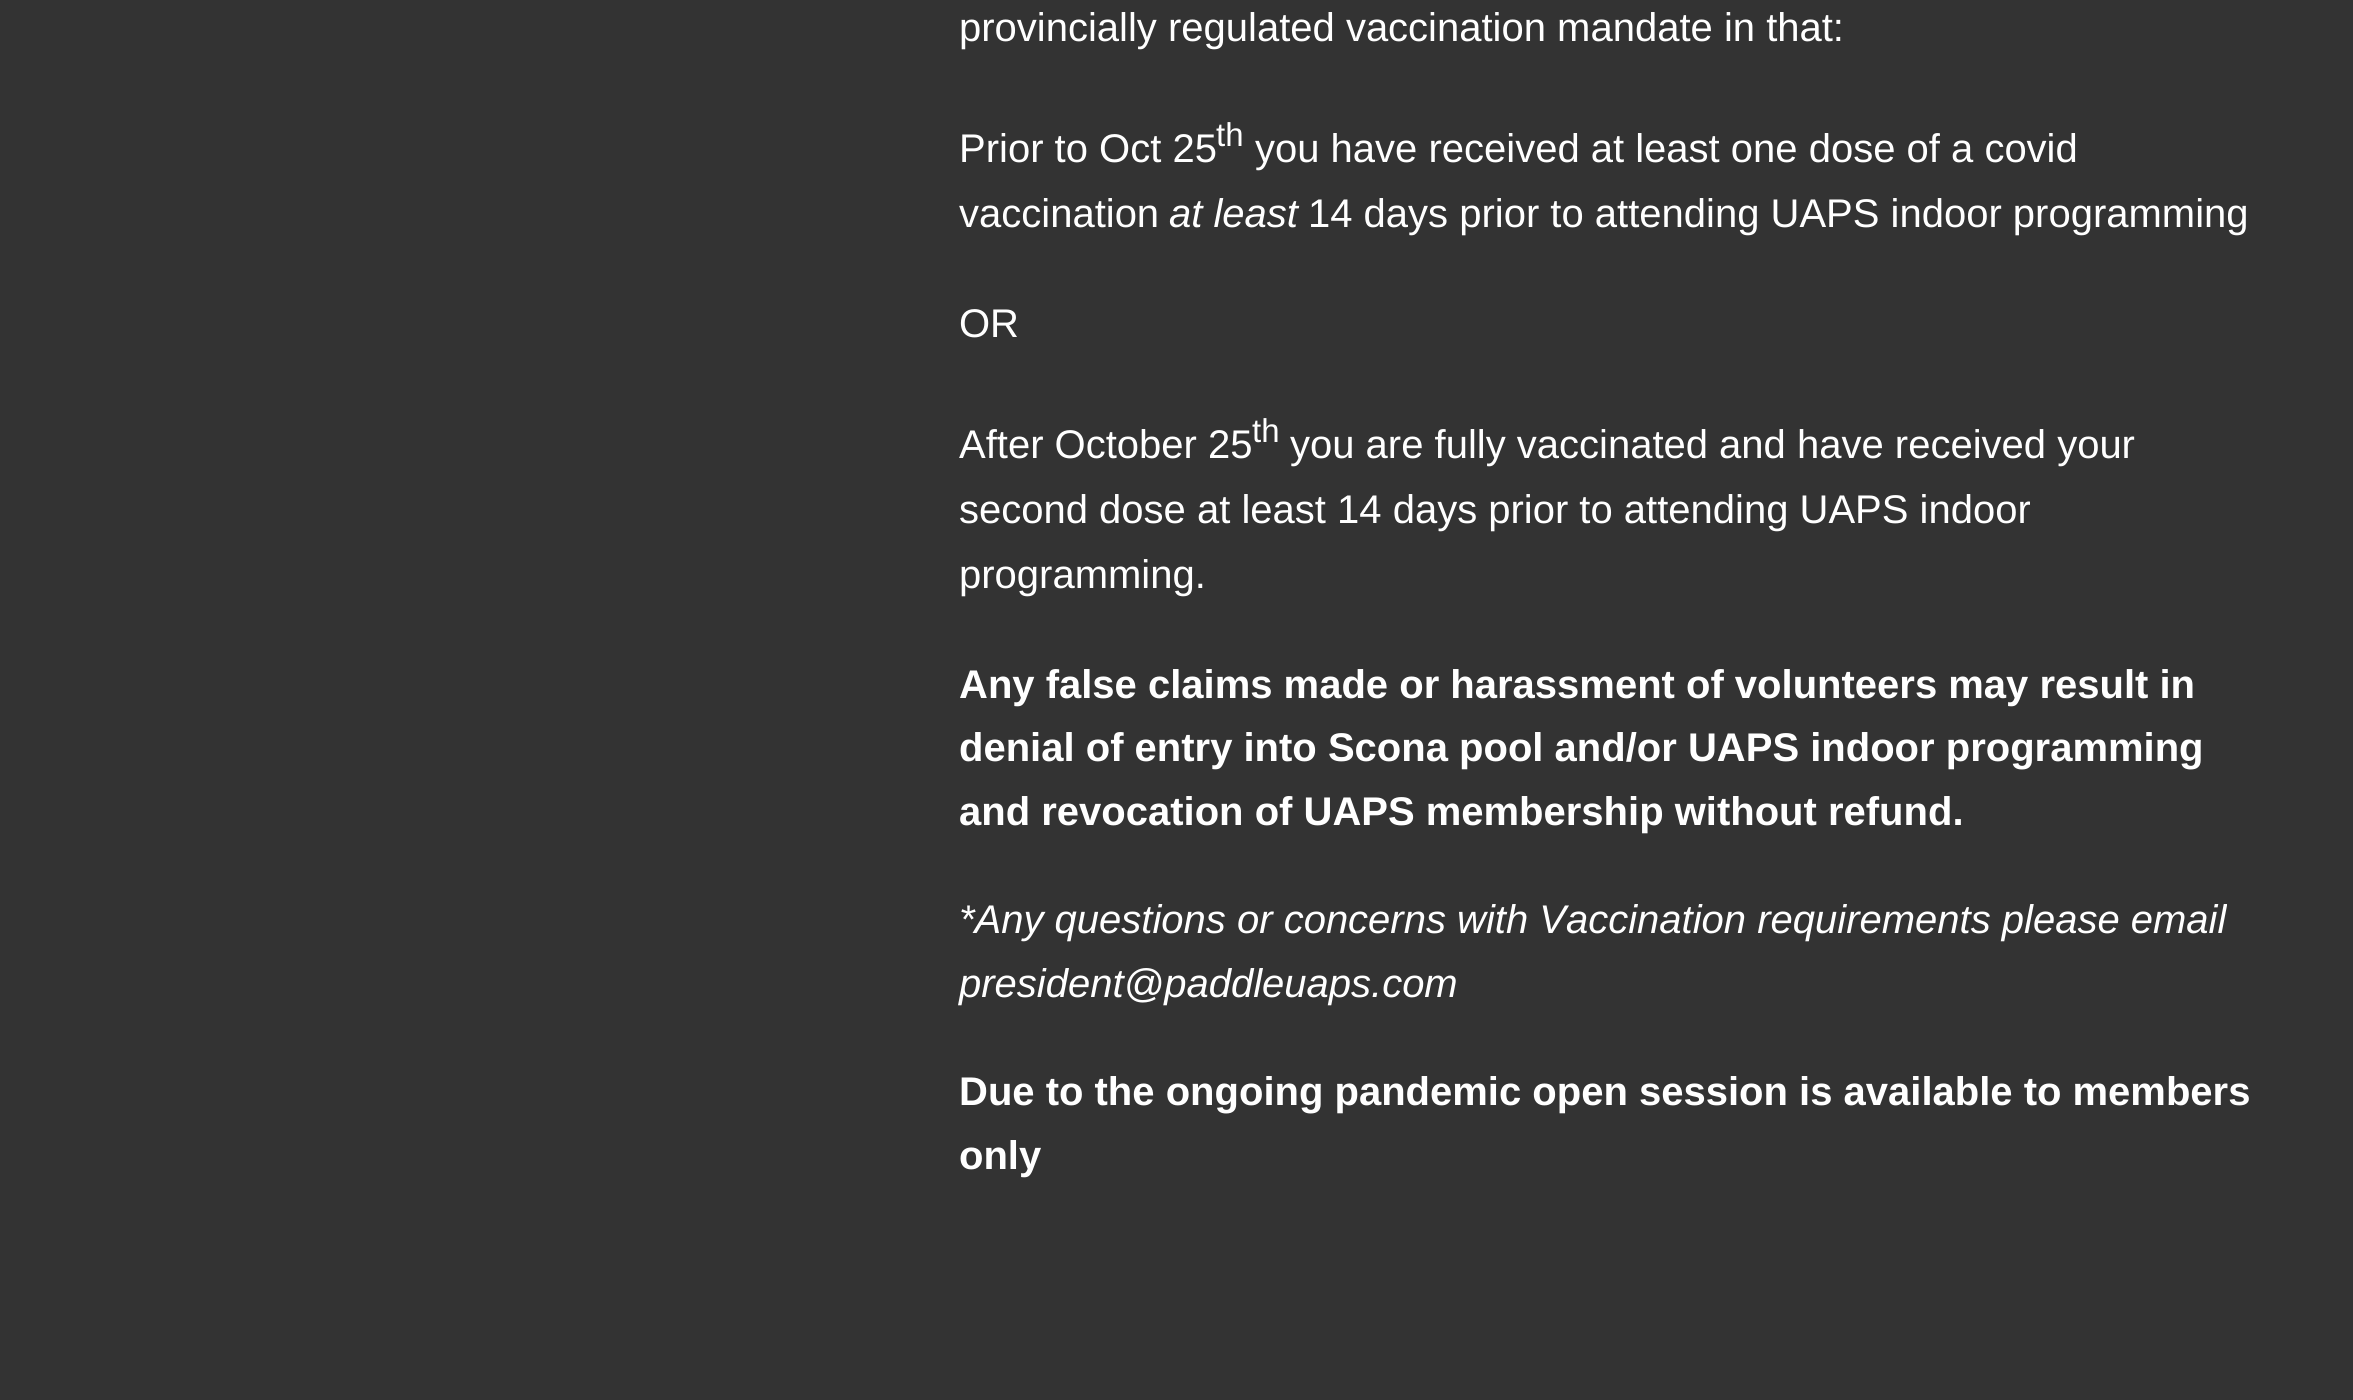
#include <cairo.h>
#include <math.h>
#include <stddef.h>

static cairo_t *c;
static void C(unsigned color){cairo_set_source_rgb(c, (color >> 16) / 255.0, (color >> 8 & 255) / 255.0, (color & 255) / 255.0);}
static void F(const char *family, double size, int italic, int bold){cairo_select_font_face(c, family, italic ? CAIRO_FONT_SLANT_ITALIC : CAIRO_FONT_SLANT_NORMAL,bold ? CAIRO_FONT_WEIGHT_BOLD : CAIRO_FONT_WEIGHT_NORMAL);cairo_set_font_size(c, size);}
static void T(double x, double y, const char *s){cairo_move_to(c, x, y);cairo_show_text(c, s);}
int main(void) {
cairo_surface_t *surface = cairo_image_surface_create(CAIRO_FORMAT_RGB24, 2353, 1400);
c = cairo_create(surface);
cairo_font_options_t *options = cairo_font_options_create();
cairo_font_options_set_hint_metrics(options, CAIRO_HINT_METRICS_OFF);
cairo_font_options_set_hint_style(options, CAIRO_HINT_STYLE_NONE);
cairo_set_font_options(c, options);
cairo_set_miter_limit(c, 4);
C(0x333333);
cairo_paint(c);
F("Liberation Sans",40,0,0);
C(0xffffff);
T(959,41,"provincially regulated vaccination mandate in that:");
T(959,162,"Prior to Oct 25");
F("Liberation Sans",33,0,0);
T(1216,146,"th");
F("Liberation Sans",40,0,0);
T(1255,162,"you have received at least one dose of a covid");
T(959,227,"vaccination");
F("Liberation Sans",40,1,0);
T(1169,227,"at least");
F("Liberation Sans",40,0,0);
T(1308,227,"14 days prior to attending UAPS indoor programming");
T(959,337,"OR");
T(959,458,"After October 25");
F("Liberation Sans",33,0,0);
T(1252,442,"th");
F("Liberation Sans",40,0,0);
T(1290,458,"you are fully vaccinated and have received your");
T(959,523,"second dose at least 14 days prior to attending UAPS indoor");
T(959,588,"programming.");
F("Liberation Sans",40,0,1);
T(959,698,"Any false claims made or harassment of volunteers may result in");
T(959,761,"denial of entry into Scona pool and/or UAPS indoor programming");
T(959,825,"and revocation of UAPS membership without refund.");
F("Liberation Sans",40,1,0);
T(959,933,"*Any questions or concerns with Vaccination requirements please email");
cairo_save(c);
cairo_rectangle(c,958,0,1315,1230);
cairo_clip(c);
T(959,997,"president@paddleuaps.com");
cairo_restore(c);
F("Liberation Sans",40,0,1);
T(959,1105,"Due to the ongoing pandemic open session is available to members");
T(959,1169,"only");
cairo_surface_write_to_png(surface, "o.png");
cairo_font_options_destroy(options);
cairo_destroy(c);
cairo_surface_destroy(surface);
return 0;
}
